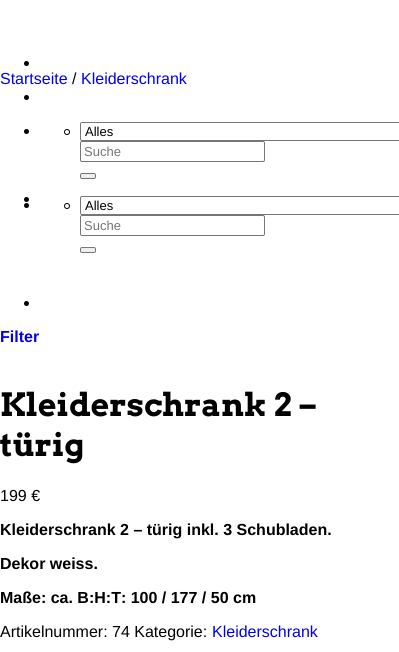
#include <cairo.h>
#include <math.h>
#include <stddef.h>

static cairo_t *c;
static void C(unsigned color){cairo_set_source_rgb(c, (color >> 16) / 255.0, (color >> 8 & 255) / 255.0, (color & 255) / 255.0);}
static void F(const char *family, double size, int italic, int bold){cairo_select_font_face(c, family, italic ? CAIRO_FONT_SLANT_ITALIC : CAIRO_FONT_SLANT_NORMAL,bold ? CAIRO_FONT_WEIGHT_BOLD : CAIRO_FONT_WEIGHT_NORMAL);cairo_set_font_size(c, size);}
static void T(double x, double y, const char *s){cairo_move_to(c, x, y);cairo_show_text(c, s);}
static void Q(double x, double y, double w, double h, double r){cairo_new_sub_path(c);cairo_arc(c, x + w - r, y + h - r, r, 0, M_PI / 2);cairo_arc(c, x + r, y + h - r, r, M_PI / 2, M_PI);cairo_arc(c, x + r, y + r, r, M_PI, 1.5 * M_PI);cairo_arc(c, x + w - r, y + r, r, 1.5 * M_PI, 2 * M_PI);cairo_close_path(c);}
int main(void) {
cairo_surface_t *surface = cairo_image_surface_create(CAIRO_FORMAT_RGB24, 399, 652);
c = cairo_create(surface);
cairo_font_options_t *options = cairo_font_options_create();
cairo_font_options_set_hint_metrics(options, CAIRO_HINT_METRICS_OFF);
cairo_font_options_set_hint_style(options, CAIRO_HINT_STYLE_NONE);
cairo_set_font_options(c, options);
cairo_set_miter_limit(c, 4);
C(0xffffff);
cairo_paint(c);
F("Liberation Sans",16,0,0);
C(0x0000ee);
T(0,84,"Startseite");
C(0x000000);
T(72,84,"/");
C(0x0000ee);
T(81,84,"Kleiderschrank");
C(0x000000);
cairo_new_path(c);
cairo_arc(c,26.5,199.5,2.5,0,2 * M_PI);
cairo_fill(c);
cairo_arc(c,26.5,303.5,2.5,0,2 * M_PI);
cairo_fill(c);
cairo_arc(c,26.5,63.5,2.5,0,2 * M_PI);
cairo_fill(c);
cairo_arc(c,26.5,97.5,2.5,0,2 * M_PI);
cairo_fill(c);
cairo_arc(c,26.5,131.5,2.5,0,2 * M_PI);
cairo_fill(c);
cairo_arc(c,67,132,2.5,0,2 * M_PI);
cairo_set_line_width(c,1);
cairo_stroke(c);
Q(80.5,122.5,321,18,1.5);
C(0x767676);
cairo_stroke(c);
F("Liberation Sans",13,0,0);
C(0x000000);
T(85,136,"Alles");
Q(80.5,141.5,184,20,1.5);
C(0x767676);
cairo_stroke(c);
C(0x757575);
T(84,156,"Suche");
C(0xefefef);
Q(80.5,173.5,15,5,1.5);
cairo_fill_preserve(c);
C(0x767676);
cairo_stroke(c);
C(0x000000);
cairo_arc(c,26.5,205.5,2.5,0,2 * M_PI);
cairo_fill(c);
cairo_arc(c,67,206,2.5,0,2 * M_PI);
cairo_stroke(c);
Q(80.5,196.5,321,18,1.5);
C(0x767676);
cairo_stroke(c);
C(0x000000);
T(85,210,"Alles");
Q(80.5,215.5,184,20,1.5);
C(0x767676);
cairo_stroke(c);
C(0x757575);
T(84,230,"Suche");
C(0xefefef);
Q(80.5,247.5,15,5,1.5);
cairo_fill_preserve(c);
C(0x767676);
cairo_stroke(c);
F("Liberation Sans",16,0,1);
C(0x0000ee);
T(0,342,"Filter");
F("Arvo",32,0,1);
C(0x000000);
T(0,416,"Kleiderschrank 2 –");
T(0,456,"türig");
F("Liberation Sans",16,0,0);
T(0,501,"199 €");
F("Liberation Sans",16,0,1);
T(0,535,"Kleiderschrank 2 – türig inkl. 3 Schubladen.");
T(0,569,"Dekor weiss.");
T(0,603,"Maße: ca. B:H:T: 100 / 177 / 50 cm");
F("Liberation Sans",16,0,0);
T(0,637,"Artikelnummer: 74 Kategorie:");
C(0x0000ee);
T(212,637,"Kleiderschrank");
cairo_surface_write_to_png(surface, "o.png");
cairo_font_options_destroy(options);
cairo_destroy(c);
cairo_surface_destroy(surface);
return 0;
}
